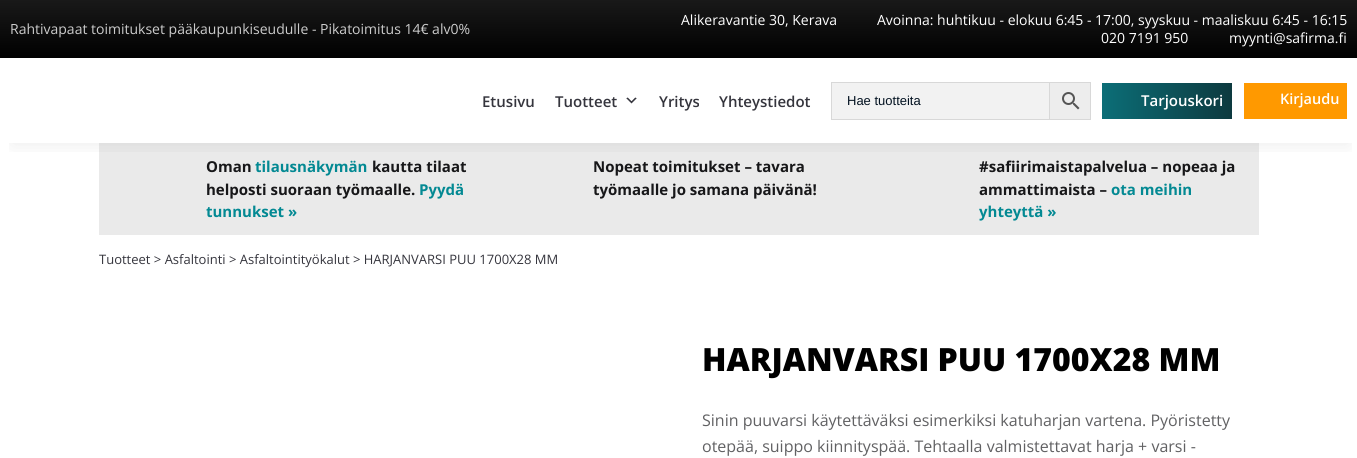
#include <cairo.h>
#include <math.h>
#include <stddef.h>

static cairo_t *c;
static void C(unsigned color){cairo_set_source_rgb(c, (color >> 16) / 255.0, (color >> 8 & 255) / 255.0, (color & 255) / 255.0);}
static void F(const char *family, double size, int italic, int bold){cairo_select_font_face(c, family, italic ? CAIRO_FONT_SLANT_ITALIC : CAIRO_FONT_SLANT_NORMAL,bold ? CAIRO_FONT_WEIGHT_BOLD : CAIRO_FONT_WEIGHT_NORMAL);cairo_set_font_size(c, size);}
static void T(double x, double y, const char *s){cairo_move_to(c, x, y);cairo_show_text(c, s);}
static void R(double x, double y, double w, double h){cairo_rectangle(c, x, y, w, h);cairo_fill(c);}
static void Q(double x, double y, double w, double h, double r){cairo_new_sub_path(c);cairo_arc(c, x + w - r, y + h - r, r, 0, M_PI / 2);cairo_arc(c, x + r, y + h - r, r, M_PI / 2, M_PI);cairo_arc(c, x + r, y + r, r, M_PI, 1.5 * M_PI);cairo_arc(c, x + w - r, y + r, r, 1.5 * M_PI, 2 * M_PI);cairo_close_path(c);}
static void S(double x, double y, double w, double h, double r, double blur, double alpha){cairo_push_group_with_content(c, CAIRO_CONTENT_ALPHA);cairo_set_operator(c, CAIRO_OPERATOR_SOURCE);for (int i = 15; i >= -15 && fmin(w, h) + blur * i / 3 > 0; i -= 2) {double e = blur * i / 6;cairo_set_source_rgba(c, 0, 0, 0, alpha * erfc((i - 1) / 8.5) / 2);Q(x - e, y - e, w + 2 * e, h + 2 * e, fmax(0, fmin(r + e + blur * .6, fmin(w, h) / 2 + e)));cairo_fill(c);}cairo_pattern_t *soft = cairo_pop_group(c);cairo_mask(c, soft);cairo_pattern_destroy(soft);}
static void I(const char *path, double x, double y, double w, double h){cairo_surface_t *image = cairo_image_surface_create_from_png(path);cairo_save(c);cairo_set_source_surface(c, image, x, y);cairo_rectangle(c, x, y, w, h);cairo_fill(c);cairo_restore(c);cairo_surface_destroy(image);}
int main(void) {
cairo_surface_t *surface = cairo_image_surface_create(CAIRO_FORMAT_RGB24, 1357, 458);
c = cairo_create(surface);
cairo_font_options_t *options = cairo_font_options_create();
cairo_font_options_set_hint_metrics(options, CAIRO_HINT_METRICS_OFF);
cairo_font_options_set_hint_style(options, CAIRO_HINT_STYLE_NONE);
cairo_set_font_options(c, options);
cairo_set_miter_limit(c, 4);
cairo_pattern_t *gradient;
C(0xffffff);
cairo_paint(c);
C(0xeaeaea);
R(99,143,1160,92);
cairo_save(c);
cairo_rectangle(c,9,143,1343,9);
cairo_clip(c);
C(0x323232);
S(12,21,1337,123,0,10,.1);
cairo_restore(c);
gradient = cairo_pattern_create_linear(679,0,679,58);
cairo_pattern_add_color_stop_rgba(gradient,0,0.098,0.098,0.098,1);
cairo_pattern_add_color_stop_rgba(gradient,1,0,0,0,1);
cairo_set_source(c,gradient);
cairo_pattern_destroy(gradient);
R(0,0,1357,58);
F("Open Sans",14,0,0);
C(0xcccccc);
T(10,34,"Rahtivapaat toimitukset pääkaupunkiseudulle - Pikatoimitus 14€ alv0%");
C(0xffffff);
T(681,25,"Alikeravantie 30, Kerava");
T(877,25,"Avoinna: huhtikuu - elokuu 6:45 - 17:00, syyskuu - maaliskuu 6:45 - 16:15");
T(1101,43,"020 7191 950");
T(1229,43,"myynti@safirma.fi");
F("Open Sans SemiBold",15,0,0);
C(0x35353d);
T(482,107,"Etusivu");
T(555,107,"Tuotteet");
I("1.png",626,97,11,7);
T(659,107,"Yritys");
T(719,107,"Yhteystiedot");
C(0xededed);
cairo_rectangle(c,1049.5,82.5,41,37);
cairo_fill_preserve(c);
C(0xd8d8d8);
cairo_set_line_width(c,1);
cairo_stroke(c);
C(0xf2f2f2);
cairo_rectangle(c,831.5,82.5,218,37);
cairo_fill_preserve(c);
C(0xd8d8d8);
cairo_stroke(c);
F("Liberation Sans",13,0,0);
C(0x031221);
T(847,105,"Hae tuotteita");
I("2.png",1062,92,18,18);
gradient = cairo_pattern_create_linear(1102,101,1232,101);
cairo_pattern_add_color_stop_rgba(gradient,0,0.047,0.431,0.467,1);
cairo_pattern_add_color_stop_rgba(gradient,1,0.051,0.227,0.247,1);
cairo_set_source(c,gradient);
cairo_pattern_destroy(gradient);
R(1102,83,130,36);
F("Open Sans SemiBold",15,0,0);
C(0xffffff);
T(1141,106,"Tarjouskori");
C(0xff9900);
R(1244,83,103,36);
F("Open Sans SemiBold",14.5,0,0);
C(0xffffff);
T(1280,104,"Kirjaudu");
F("Open Sans",15,0,1);
C(0x171719);
T(206,172,"Oman");
C(0x038993);
T(255,172,"tilausnäkymän");
C(0x171719);
T(372,172,"kautta tilaat");
T(206,195,"helposti suoraan työmaalle.");
C(0x038993);
T(419,195,"Pyydä");
T(206,217,"tunnukset »");
C(0x171719);
T(593,172,"Nopeat toimitukset – tavara");
T(593,195,"työmaalle jo samana päivänä!");
T(979,172,"#safiirimaistapalvelua – nopeaa ja");
T(979,195,"ammattimaista –");
C(0x038993);
T(1111,195,"ota meihin");
T(979,217,"yhteyttä »");
F("Open Sans",13,0,0);
C(0x35353d);
T(99,264,"Tuotteet > Asfaltointi > Asfaltointityökalut > HARJANVARSI PUU 1700X28 MM");
F("Open Sans ExtraBold",32,0,0);
C(0x000000);
T(702,371,"HARJANVARSI PUU 1700X28 MM");
F("Open Sans",16,0,0);
C(0x616163);
T(702,426,"Sinin puuvarsi käytettäväksi esimerkiksi katuharjan vartena. Pyöristetty");
T(702,452,"otepää, suippo kiinnityspää. Tehtaalla valmistettavat harja + varsi -");
cairo_surface_write_to_png(surface, "o.png");
cairo_font_options_destroy(options);
cairo_destroy(c);
cairo_surface_destroy(surface);
return 0;
}
